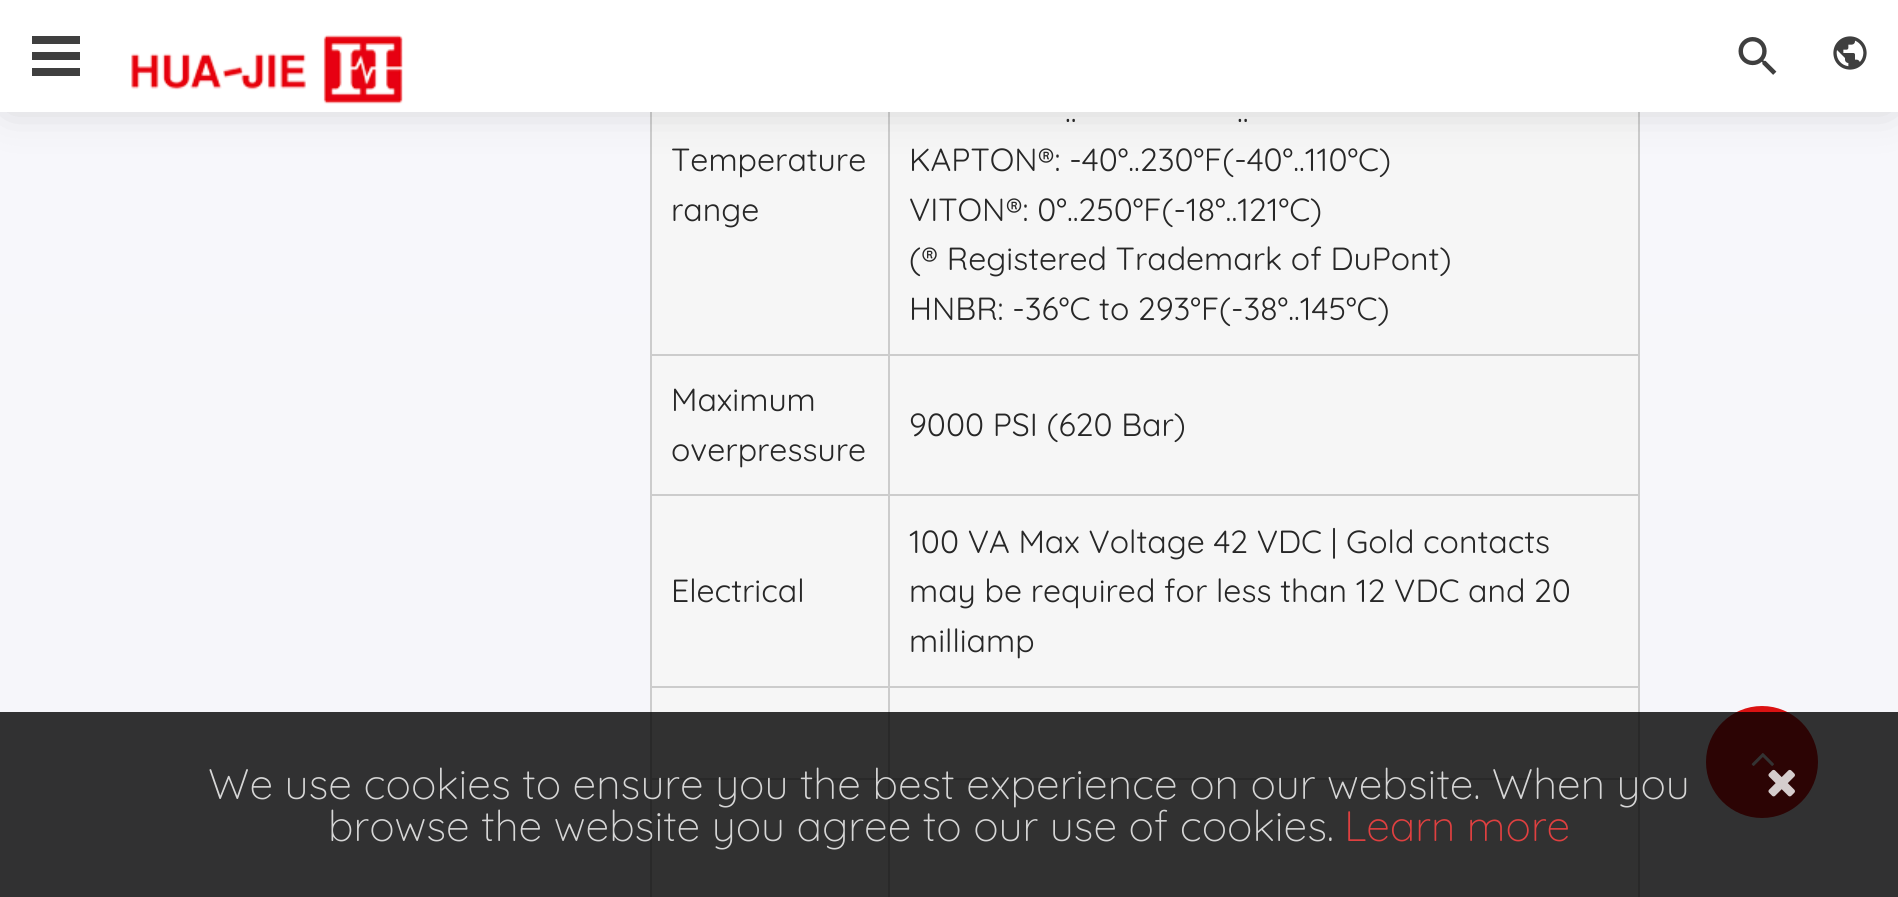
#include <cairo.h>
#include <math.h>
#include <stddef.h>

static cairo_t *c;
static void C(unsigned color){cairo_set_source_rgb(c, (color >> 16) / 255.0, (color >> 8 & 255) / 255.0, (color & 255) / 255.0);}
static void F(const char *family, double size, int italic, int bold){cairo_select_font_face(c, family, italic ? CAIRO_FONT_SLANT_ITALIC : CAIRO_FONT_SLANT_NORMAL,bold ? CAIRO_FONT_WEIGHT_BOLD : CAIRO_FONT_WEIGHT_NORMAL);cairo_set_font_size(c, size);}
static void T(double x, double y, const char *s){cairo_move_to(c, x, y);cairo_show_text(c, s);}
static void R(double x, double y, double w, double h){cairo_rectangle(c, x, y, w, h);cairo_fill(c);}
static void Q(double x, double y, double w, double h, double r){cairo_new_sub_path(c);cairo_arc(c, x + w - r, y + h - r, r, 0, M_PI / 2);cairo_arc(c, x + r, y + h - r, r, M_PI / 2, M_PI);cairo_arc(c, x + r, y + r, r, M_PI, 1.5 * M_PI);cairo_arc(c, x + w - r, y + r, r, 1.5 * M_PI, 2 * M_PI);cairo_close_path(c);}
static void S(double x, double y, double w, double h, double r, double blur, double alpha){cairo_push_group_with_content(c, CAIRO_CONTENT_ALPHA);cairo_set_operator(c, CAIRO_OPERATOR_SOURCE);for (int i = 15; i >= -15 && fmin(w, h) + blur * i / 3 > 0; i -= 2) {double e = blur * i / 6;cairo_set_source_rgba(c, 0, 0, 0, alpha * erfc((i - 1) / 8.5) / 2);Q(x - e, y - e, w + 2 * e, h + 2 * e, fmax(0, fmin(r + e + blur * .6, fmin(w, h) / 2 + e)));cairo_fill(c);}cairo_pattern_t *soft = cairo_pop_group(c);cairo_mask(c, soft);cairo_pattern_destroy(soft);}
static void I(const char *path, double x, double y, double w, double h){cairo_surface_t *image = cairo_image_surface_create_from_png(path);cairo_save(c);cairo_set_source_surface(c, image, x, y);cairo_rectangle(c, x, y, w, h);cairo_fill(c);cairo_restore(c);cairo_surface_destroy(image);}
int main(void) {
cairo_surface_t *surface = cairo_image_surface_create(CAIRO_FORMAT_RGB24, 1898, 897);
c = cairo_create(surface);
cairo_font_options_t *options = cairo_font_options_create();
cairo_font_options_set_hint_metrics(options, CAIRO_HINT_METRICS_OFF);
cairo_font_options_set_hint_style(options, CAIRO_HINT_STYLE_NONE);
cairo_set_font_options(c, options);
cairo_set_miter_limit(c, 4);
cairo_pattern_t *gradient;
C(0xffffff);
cairo_paint(c);
gradient = cairo_pattern_create_linear(949,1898,949,-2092);
cairo_pattern_add_color_stop_rgba(gradient,0,0.953,0.953,0.976,1);
cairo_pattern_add_color_stop_rgba(gradient,1,0.992,0.992,0.992,1);
cairo_set_source(c,gradient);
cairo_pattern_destroy(gradient);
R(0,112,1898,785);
C(0xf6f6f6);
R(652,112,986,785);
C(0xcccccc);
R(888,354,752,2);
R(888,494,752,2);
R(888,686,752,2);
R(888,778,752,2);
R(888,778,2,119);
R(650,778,240,2);
R(888,686,2,94);
R(650,686,240,2);
R(888,494,2,194);
R(650,494,240,2);
R(888,354,2,142);
R(650,354,240,2);
R(888,112,2,244);
R(650,778,2,119);
R(650,686,2,94);
R(650,494,2,194);
R(650,112,2,384);
R(1638,778,2,119);
R(1638,686,2,94);
R(1638,494,2,194);
R(1638,112,2,384);
C(0x000000);
S(8,10,1882,96,0,22,.17);
C(0xffffff);
R(0,0,1898,112);
C(0x3f3f3f);
R(32,52,48,8);
R(32,36,48,8);
R(32,68,48,8);
I("1.png",131,35,272,69);
I("2.png",1738,37,39,38);
I("3.png",1833,36,34,34);
F("Quicksand",32,0,0);
C(0x272727);
T(671,171,"Temperature");
T(671,221,"range");
T(1065,122,"..");
T(1237,122,"..");
T(909,171,"KAPTON®: -40°..230°F(-40°..110°C)");
T(909,221,"VITON®: 0°..250°F(-18°..121°C)");
T(909,270,"(® Registered Trademark of DuPont)");
T(909,320,"HNBR: -36°C to 293°F(-38°..145°C)");
T(671,411,"Maximum");
T(671,461,"overpressure");
T(909,436,"9000 PSI (620 Bar)");
T(671,602,"Electrical");
T(909,553,"100 VA Max Voltage 42 VDC | Gold contacts");
T(909,602,"may be required for less than 12 VDC and 20");
T(909,652,"milliamp");
C(0xdb1212);
cairo_new_path(c);
cairo_arc(c,1762,762,56,0,2 * M_PI);
cairo_fill(c);
I("5.png",1751,753,23,13);
cairo_set_source_rgba(c,0,0,0,0.8);
R(0,712,1898,185);
F("Quicksand Light",42.55,0,0);
C(0xd6d6d6);
T(208,799,"We use cookies to ensure you the best experience on our website. When you");
T(328,841,"browse the website you agree to our use of cookies.");
C(0xe04040);
T(1344,841,"Learn more");
I("4.png",1768,769,27,28);
cairo_surface_write_to_png(surface, "o.png");
cairo_font_options_destroy(options);
cairo_destroy(c);
cairo_surface_destroy(surface);
return 0;
}
